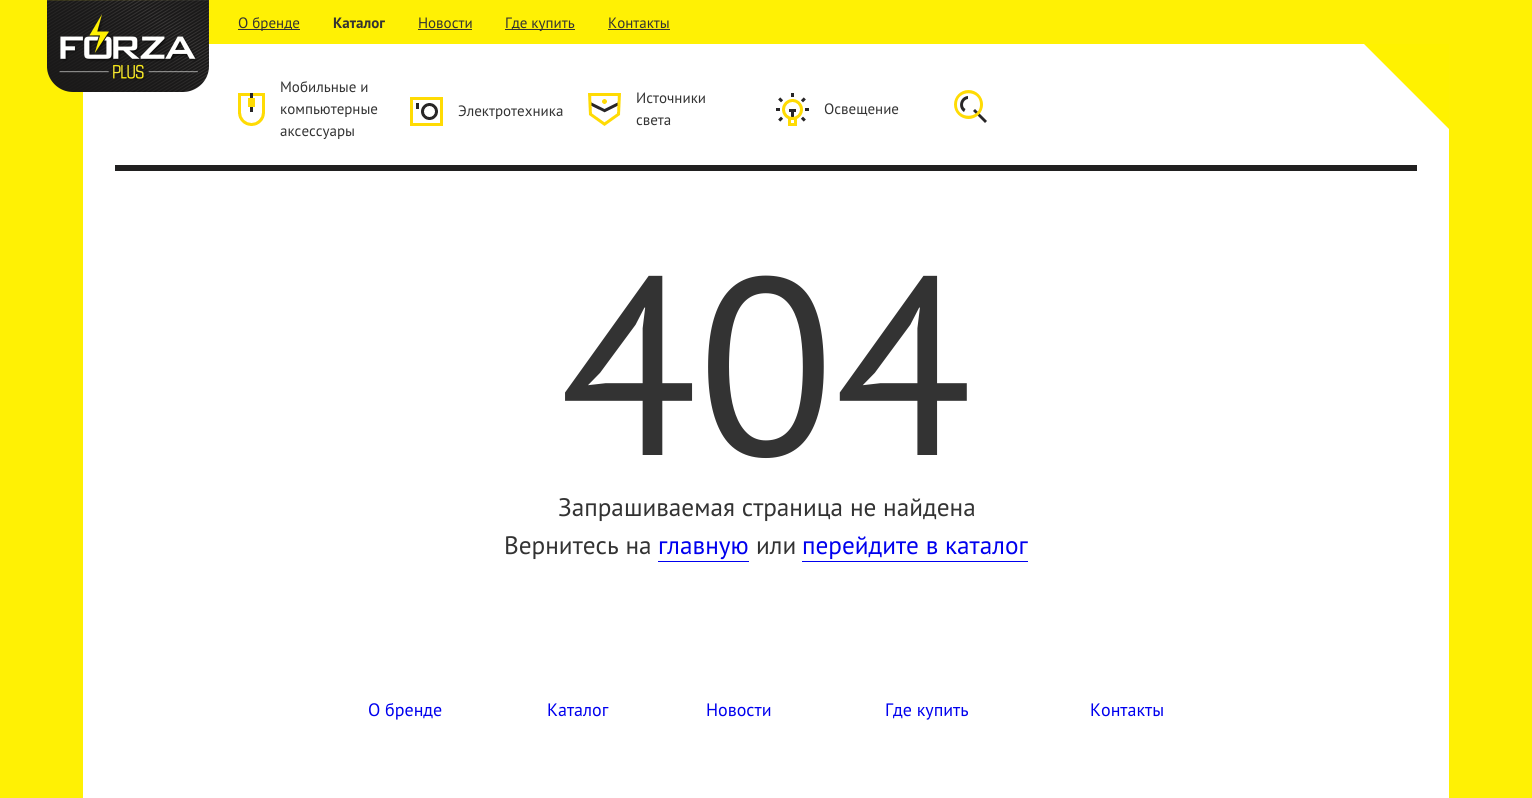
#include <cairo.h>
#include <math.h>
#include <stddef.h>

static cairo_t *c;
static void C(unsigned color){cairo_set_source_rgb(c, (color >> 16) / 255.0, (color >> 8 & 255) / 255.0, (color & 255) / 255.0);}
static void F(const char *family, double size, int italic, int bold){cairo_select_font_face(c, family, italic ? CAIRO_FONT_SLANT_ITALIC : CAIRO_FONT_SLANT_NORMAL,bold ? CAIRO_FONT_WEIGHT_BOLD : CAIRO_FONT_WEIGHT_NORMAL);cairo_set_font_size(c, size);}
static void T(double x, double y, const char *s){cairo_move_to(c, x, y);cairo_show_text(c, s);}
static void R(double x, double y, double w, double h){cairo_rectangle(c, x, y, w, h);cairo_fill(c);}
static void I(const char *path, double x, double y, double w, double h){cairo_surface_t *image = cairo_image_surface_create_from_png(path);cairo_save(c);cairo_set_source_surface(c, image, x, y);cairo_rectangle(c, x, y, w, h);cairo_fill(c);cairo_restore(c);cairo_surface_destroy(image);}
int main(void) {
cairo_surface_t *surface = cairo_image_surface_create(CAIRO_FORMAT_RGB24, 1532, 798);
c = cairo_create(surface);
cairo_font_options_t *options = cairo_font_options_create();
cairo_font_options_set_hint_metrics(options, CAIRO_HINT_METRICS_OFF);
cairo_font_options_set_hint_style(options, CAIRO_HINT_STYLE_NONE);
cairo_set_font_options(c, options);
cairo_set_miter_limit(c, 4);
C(0xfff104);
cairo_paint(c);
C(0xffffff);
R(83,44,1366,754);
I("1.png",47,0,162,92);
C(0x333333);
R(238,29,62,1);
F("PT Sans",15,0,0);
T(238,28,"О бренде");
F("PT Sans",15,0,1);
T(333,28,"Каталог");
F("PT Sans",15,0,0);
T(418,28,"Новости");
R(418,29,54,1);
R(505,29,70,1);
T(505,28,"Где купить");
T(608,28,"Контакты");
R(608,29,62,1);
C(0x212020);
R(115,165,1302,6);
I("2.png",238,93,27,33);
C(0x333333);
T(280,92,"Мобильные и");
T(280,114,"компьютерные");
T(280,136,"аксессуары");
I("3.png",410,97,33,29);
T(458,116,"Электротехника");
I("4.png",588,93,33,33);
T(636,103,"Источники");
T(636,125,"света");
I("5.png",776,93,33,33);
T(824,114,"Освещение");
C(0x282627);
cairo_new_path(c);
cairo_move_to(c,973,111);
cairo_line_to(c,975,109);
cairo_line_to(c,987,121);
cairo_line_to(c,985,123);
cairo_close_path(c);
cairo_fill(c);
cairo_save(c);
cairo_new_path(c);
cairo_move_to(c,954,104.5);
cairo_curve_to(c,954,96.5,960.5,90,968.5,90);
cairo_curve_to(c,976.5,90,983,96.5,983,104.5);
cairo_curve_to(c,983,112.5,976.5,119,968.5,119);
cairo_curve_to(c,960.5,119,954,112.5,954,104.5);
cairo_close_path(c);
cairo_clip(c);
cairo_new_path(c);
cairo_move_to(c,954,104.5);
cairo_curve_to(c,954,85.5,983,85.5,983,104.5);
cairo_curve_to(c,983,123.5,954,123.5,954,104.5);
cairo_close_path(c);
C(0xffdb04);
cairo_set_line_width(c,6);
cairo_stroke(c);
cairo_restore(c);
cairo_new_path(c);
cairo_move_to(c,964,112);
cairo_curve_to(c,957,107.5,960,96.5,968,96);
cairo_line_to(c,968,99);
cairo_curve_to(c,963,99.5,961,106.5,965.5,109);
cairo_close_path(c);
cairo_fill(c);
F("PT Sans",252,0,0);
C(0x333333);
T(560,455,"404");
F("PT Sans",25.25,0,0);
T(558,516,"Запрашиваемая страница не найдена");
T(504,554,"Вернитесь на");
C(0x0000ee);
T(658,554,"главную");
R(658,561,91,1);
C(0x333333);
T(756,554,"или");
C(0x0000ee);
T(802,554,"перейдите в каталог");
R(802,561,226,1);
F("PT Sans",18,0,0);
T(368,716,"О бренде");
T(547,716,"Каталог");
T(706,716,"Новости");
T(885,716,"Где купить");
T(1090,716,"Контакты");
C(0xfff200);
cairo_new_path(c);
cairo_move_to(c,1449,44);
cairo_line_to(c,1449,129);
cairo_line_to(c,1364,44);
cairo_close_path(c);
cairo_fill(c);
cairo_surface_write_to_png(surface, "o.png");
cairo_font_options_destroy(options);
cairo_destroy(c);
cairo_surface_destroy(surface);
return 0;
}
